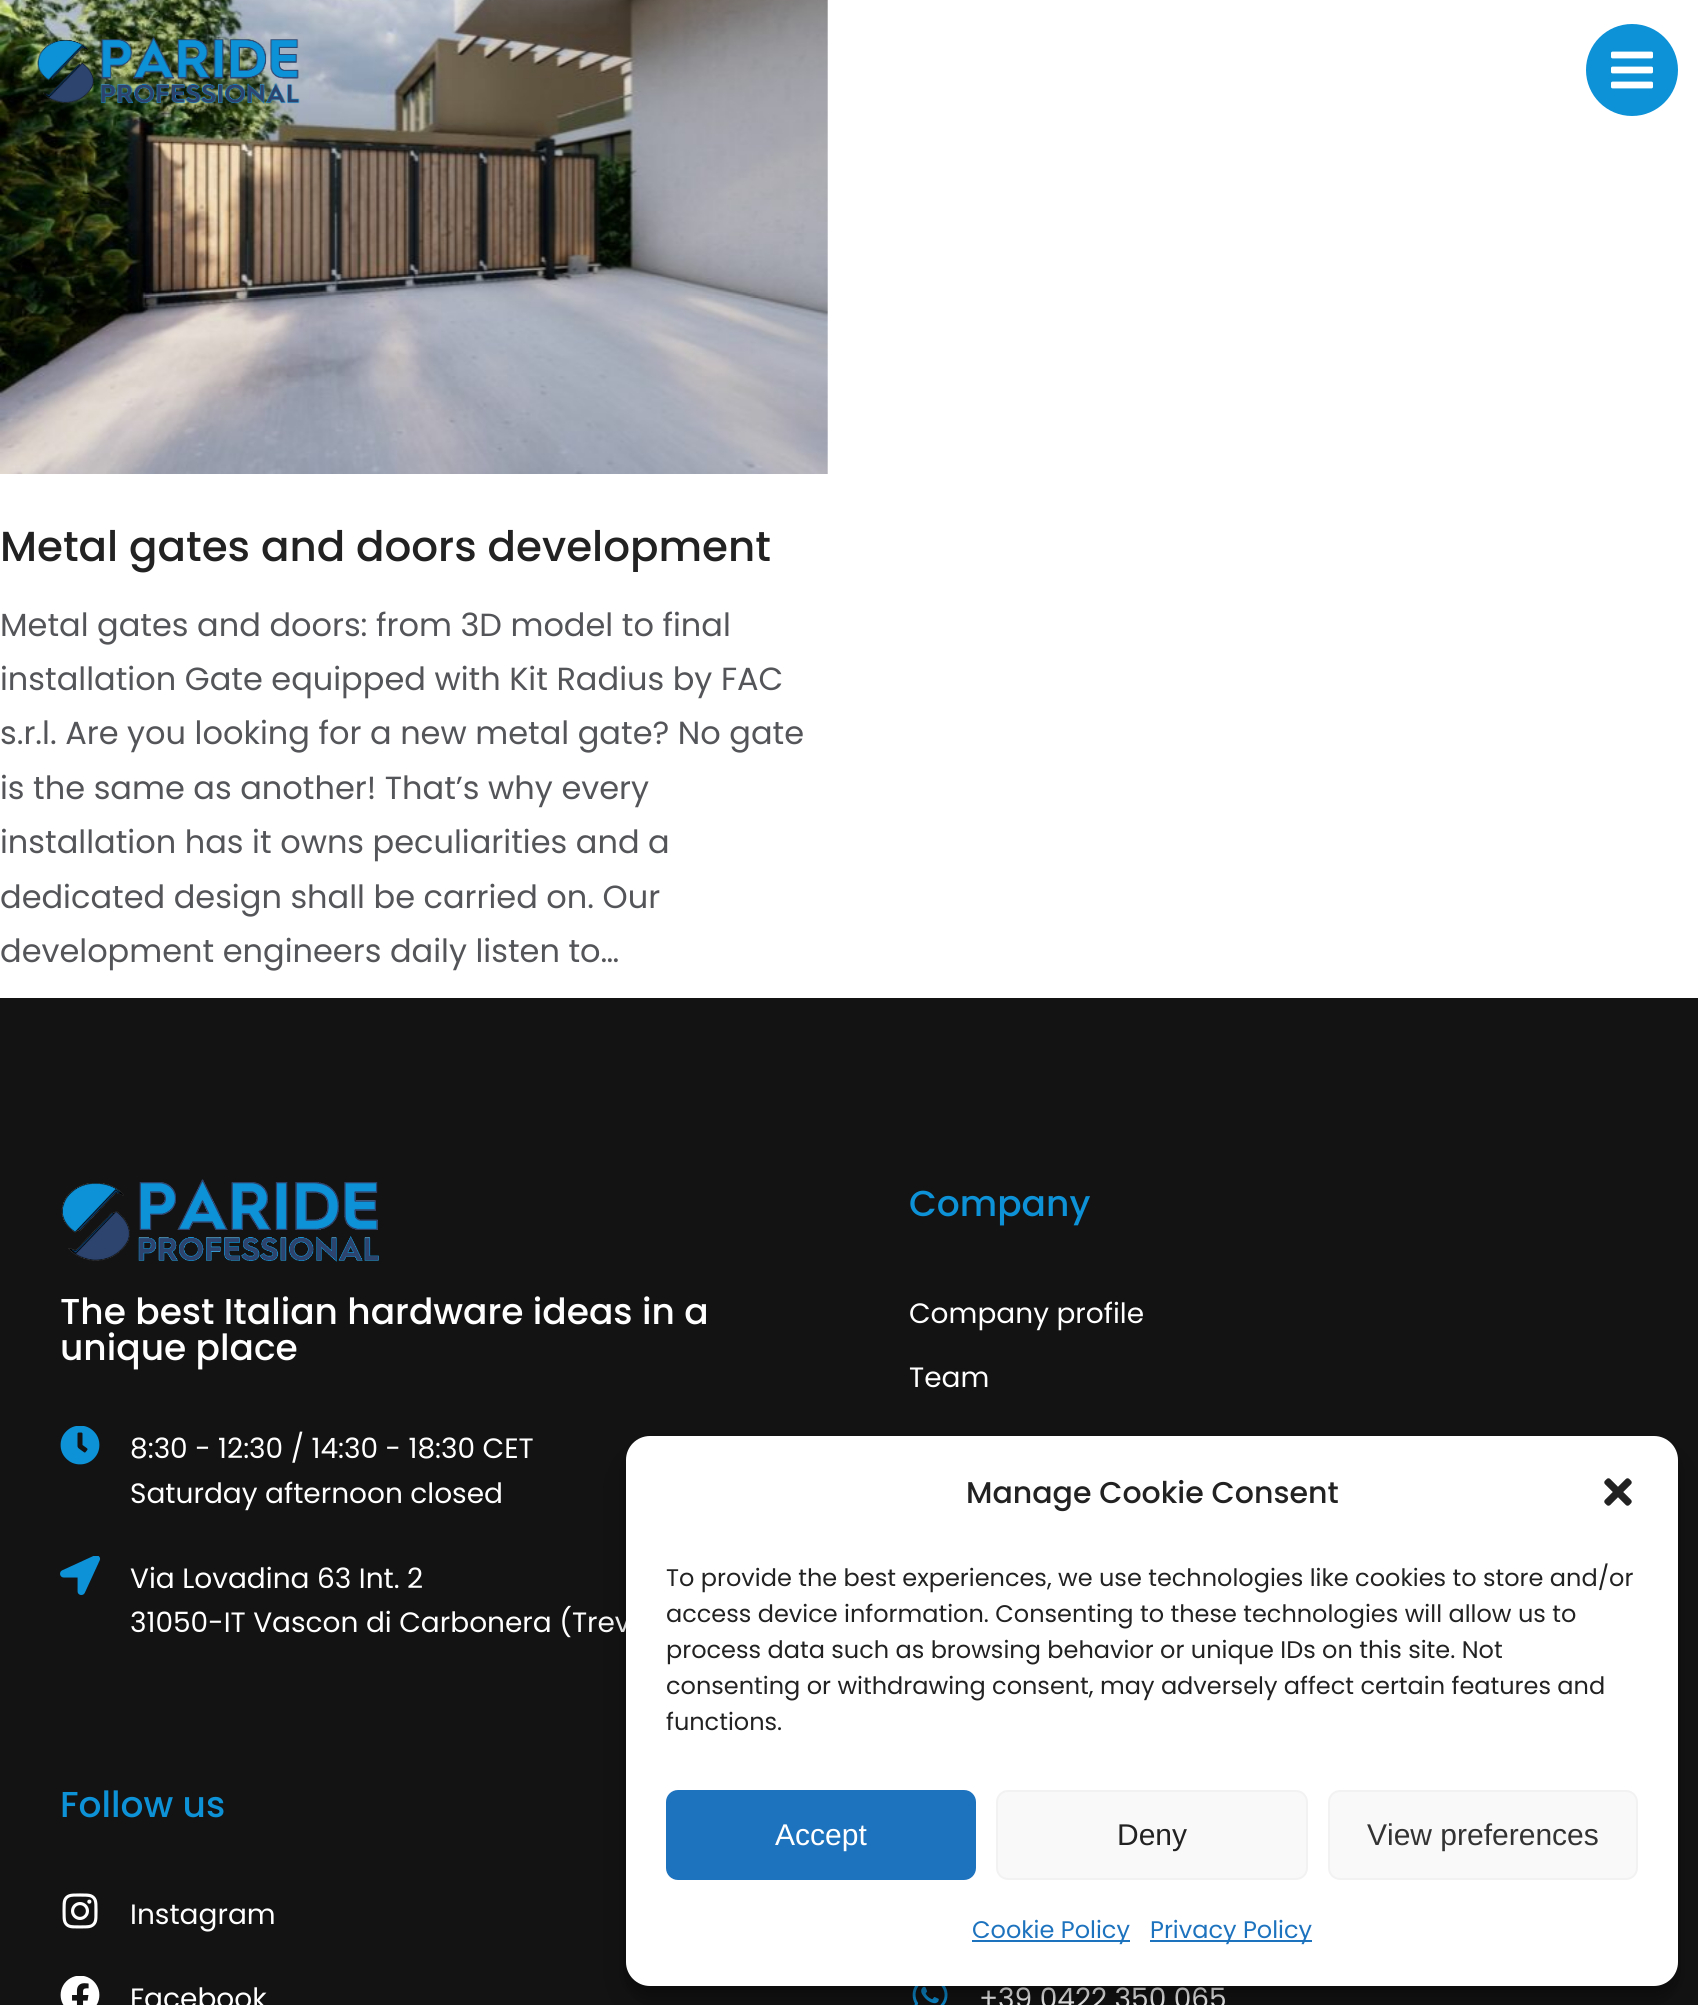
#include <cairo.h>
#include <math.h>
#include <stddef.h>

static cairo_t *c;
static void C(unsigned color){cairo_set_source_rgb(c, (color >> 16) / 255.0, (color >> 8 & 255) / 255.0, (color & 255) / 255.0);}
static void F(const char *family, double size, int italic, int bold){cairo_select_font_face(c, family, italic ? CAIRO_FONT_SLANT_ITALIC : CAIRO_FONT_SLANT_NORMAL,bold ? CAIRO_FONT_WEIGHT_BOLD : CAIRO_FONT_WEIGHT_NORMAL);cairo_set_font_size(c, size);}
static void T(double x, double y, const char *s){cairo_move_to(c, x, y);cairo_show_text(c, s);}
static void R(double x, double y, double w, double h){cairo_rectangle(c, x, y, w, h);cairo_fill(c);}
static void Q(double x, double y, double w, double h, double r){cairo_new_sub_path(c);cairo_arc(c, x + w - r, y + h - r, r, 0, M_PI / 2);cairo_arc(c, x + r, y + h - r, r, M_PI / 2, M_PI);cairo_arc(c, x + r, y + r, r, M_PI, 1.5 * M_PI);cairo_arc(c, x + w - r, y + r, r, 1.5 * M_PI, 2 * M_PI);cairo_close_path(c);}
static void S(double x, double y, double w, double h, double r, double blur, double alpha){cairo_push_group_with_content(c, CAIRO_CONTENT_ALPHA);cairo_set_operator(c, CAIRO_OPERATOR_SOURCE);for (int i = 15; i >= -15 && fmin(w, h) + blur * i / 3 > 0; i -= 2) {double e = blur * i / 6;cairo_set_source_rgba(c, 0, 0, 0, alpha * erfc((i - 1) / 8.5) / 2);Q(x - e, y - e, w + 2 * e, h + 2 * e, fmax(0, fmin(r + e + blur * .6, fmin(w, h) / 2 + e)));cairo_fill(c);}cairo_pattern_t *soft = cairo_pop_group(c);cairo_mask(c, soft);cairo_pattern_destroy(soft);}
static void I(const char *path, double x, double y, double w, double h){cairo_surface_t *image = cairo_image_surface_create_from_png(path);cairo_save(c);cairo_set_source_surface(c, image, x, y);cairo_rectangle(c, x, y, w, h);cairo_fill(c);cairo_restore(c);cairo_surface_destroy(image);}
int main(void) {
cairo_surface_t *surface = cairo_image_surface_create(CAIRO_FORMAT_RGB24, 1698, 2005);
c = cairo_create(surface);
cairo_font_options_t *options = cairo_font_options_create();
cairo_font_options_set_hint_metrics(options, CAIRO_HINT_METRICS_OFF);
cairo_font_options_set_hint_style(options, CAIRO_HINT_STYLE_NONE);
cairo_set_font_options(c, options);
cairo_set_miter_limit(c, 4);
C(0xffffff);
cairo_paint(c);
I("3.png",0,0,828,474);
I("1.png",37,36,263,68);
C(0x0d91d7);
cairo_arc(c,1632,70,46,0,2 * M_PI);
cairo_fill(c);
I("2.png",1611,51,42,38);
F("Poppins Medium",42,0,0);
C(0x222222);
T(0,561,"Metal gates and doors development");
F("Poppins",32,0,0);
C(0x545559);
T(0,636,"Metal gates and doors: from 3D model to final");
T(0,690,"installation Gate equipped with Kit Radius by FAC");
T(0,744,"s.r.l. Are you looking for a new metal gate? No gate");
T(0,799,"is the same as another! That’s why every");
T(0,853,"installation has it owns peculiarities and a");
T(0,908,"dedicated design shall be carried on. Our");
T(0,962,"development engineers daily listen to…");
C(0x131313);
R(0,998,1698,1007);
I("4.png",61,1179,318,83);
F("Poppins Medium",36,0,0);
C(0xffffff);
T(60,1324,"The best Italian hardware ideas in a");
T(60,1360,"unique place");
I("5.png",60,1426,40,39);
F("Poppins",28,0,0);
T(130,1458,"8:30 - 12:30 / 14:30 - 18:30 CET");
T(130,1503,"Saturday afternoon closed");
I("6.png",60,1556,41,39);
T(130,1588,"Via Lovadina 63 Int. 2");
T(130,1632,"31050-IT Vascon di Carbonera (Trev");
F("Poppins Medium",36,0,0);
C(0x0d91d7);
T(909,1216,"Company");
F("Poppins",28,0,0);
C(0xffffff);
T(909,1323,"Company profile");
T(909,1387,"Team");
F("Poppins Medium",36,0,0);
C(0x0d91d7);
T(60,1817,"Follow us");
I("7.png",62,1893,36,36);
F("Poppins",28,0,0);
C(0xffffff);
T(130,1924,"Instagram");
I("8.png",60,1976,40,29);
T(130,2008,"Facebook");
I("9.png",912,1986,36,19);
T(979,2008,"+39 0422 350 065");
C(0x000000);
S(626,1448,1052,550,24,6,.23);
S(626,1456,1052,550,24,20,.19);
C(0xffffff);
Q(626,1436,1052,550,24);
cairo_fill(c);
F("Poppins Medium",30,0,0);
C(0x222222);
T(966,1503,"Manage Cookie Consent");
I("10.png",1604,1478,28,28);
F("Poppins",24,0,0);
T(666,1586,"To provide the best experiences, we use technologies like cookies to store and/or");
T(666,1622,"access device information. Consenting to these technologies will allow us to");
T(666,1658,"process data such as browsing behavior or unique IDs on this site. Not");
T(666,1694,"consenting or withdrawing consent, may adversely affect certain features and");
T(666,1730,"functions.");
C(0x1e73be);
Q(667,1791,308,88,11);
cairo_fill_preserve(c);
cairo_stroke(c);
F("Liberation Sans",30,0,0);
C(0xffffff);
T(775,1845,"Accept");
C(0xf9f9f9);
Q(997,1791,310,88,11);
cairo_fill_preserve(c);
C(0xf2f2f2);
cairo_stroke(c);
C(0x222222);
T(1117,1845,"Deny");
C(0xf9f9f9);
Q(1329,1791,308,88,11);
cairo_fill_preserve(c);
C(0xf2f2f2);
cairo_stroke(c);
C(0x333333);
T(1367,1845,"View preferences");
C(0x1e73be);
R(972,1940,158,2);
F("Poppins",24,0,0);
T(972,1938,"Cookie Policy");
R(1150,1940,162,2);
T(1150,1938,"Privacy Policy");
cairo_surface_write_to_png(surface, "o.png");
cairo_font_options_destroy(options);
cairo_destroy(c);
cairo_surface_destroy(surface);
return 0;
}
